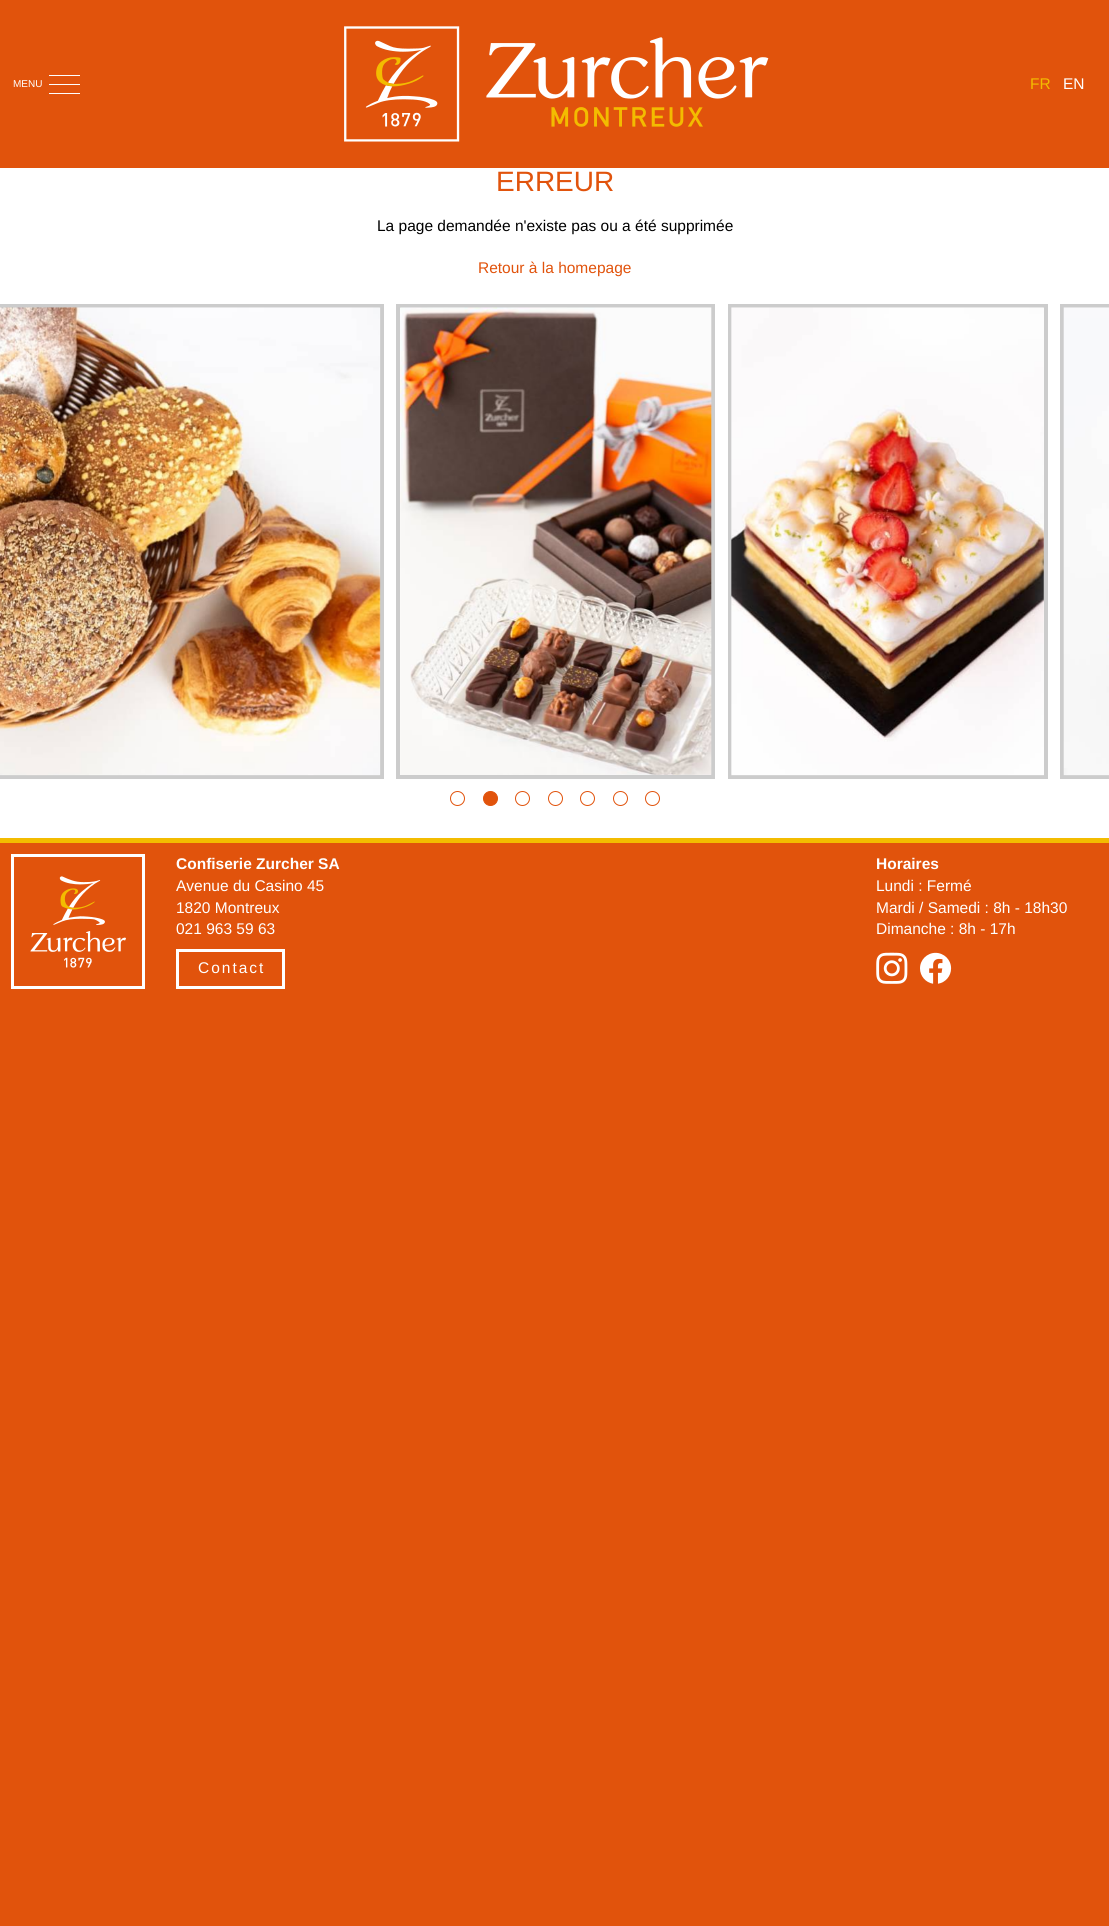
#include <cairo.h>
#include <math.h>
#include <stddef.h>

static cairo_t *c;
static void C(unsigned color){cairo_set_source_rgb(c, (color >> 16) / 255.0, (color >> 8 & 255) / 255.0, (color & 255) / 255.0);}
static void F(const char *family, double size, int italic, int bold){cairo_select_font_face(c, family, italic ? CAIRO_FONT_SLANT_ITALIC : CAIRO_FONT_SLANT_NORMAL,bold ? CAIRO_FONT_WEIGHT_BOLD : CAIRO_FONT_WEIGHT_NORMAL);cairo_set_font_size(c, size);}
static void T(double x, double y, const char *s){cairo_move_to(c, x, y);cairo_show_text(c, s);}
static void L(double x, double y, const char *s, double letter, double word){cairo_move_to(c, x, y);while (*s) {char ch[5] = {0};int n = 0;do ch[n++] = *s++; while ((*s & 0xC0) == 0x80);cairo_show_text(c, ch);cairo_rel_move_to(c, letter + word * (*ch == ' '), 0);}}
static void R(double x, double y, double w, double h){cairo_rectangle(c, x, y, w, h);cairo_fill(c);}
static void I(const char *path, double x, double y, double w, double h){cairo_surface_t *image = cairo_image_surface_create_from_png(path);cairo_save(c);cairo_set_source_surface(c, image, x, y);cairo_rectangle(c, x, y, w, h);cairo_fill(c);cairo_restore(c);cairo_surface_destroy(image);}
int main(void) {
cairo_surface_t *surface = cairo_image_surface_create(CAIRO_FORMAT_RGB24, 1109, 1926);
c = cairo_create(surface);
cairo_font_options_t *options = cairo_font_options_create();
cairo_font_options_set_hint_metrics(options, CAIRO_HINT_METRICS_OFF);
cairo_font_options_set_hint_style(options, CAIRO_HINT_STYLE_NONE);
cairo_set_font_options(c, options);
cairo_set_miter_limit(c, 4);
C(0xe1530c);
cairo_paint(c);
F("Liberation Sans",10,0,0);
C(0xffffff);
T(13,87,"MENU");
R(49,75,31,1);
R(49,84,31,1);
R(49,93,31,1);
I("1.png",344,26,425,116);
I("2.png",376,57,327,70);
F("Liberation Sans",15.5,0,0);
C(0xf3bc00);
T(1030,89,"FR");
C(0xffffff);
T(1063,89,"EN");
R(0,168,1109,670);
F("Liberation Sans",28,0,0);
C(0xe1530c);
T(496,191,"ERREUR");
F("Liberation Sans",15.5,0,0);
C(0x000000);
T(377,231,"La page demandée n'existe pas ou a été supprimée");
C(0xe1530c);
T(478,273,"Retour à la homepage");
cairo_rectangle(c,-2,306,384,471);
C(0xcccccc);
cairo_set_line_width(c,4);
cairo_stroke(c);
I("3.png",0,307,381,469);
cairo_rectangle(c,398,306,315,471);
cairo_stroke(c);
I("4.png",400,307,312,468);
cairo_rectangle(c,730,306,316,471);
cairo_stroke(c);
I("5.png",731,307,313,469);
cairo_rectangle(c,1062,306,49,471);
cairo_stroke(c);
I("6.png",1063,307,46,469);
cairo_arc(c,457.5,798.5,7,0,2 * M_PI);
C(0xe1530c);
cairo_set_line_width(c,1);
cairo_stroke(c);
cairo_arc(c,490.5,798.5,7,0,2 * M_PI);
cairo_fill_preserve(c);
cairo_stroke(c);
cairo_arc(c,522.5,798.5,7,0,2 * M_PI);
cairo_stroke(c);
cairo_arc(c,555.5,798.5,7,0,2 * M_PI);
cairo_stroke(c);
cairo_arc(c,587.5,798.5,7,0,2 * M_PI);
cairo_stroke(c);
cairo_arc(c,620.5,798.5,7,0,2 * M_PI);
cairo_stroke(c);
cairo_arc(c,652.5,798.5,7,0,2 * M_PI);
cairo_stroke(c);
C(0xf3bc00);
R(0,838,1109,5);
cairo_rectangle(c,12.5,855.5,131,132);
C(0xffffff);
cairo_set_line_width(c,3);
cairo_stroke(c);
I("8.png",60,888,35,22);
I("7.png",30,876,96,92);
F("Liberation Sans",15.5,0,1);
T(176,869,"Confiserie Zurcher SA");
F("Liberation Sans",15.5,0,0);
T(176,891,"Avenue du Casino 45");
T(176,913,"1820 Montreux");
T(176,934,"021 963 59 63");
cairo_rectangle(c,177.5,950.5,106,37);
cairo_stroke(c);
L(198,973,"Contact",2,0);
F("Liberation Sans",15.5,0,1);
T(876,869,"Horaires");
F("Liberation Sans",15.5,0,0);
T(876,891,"Lundi : Fermé");
T(876,913,"Mardi / Samedi : 8h - 18h30");
T(876,934,"Dimanche : 8h - 17h");
I("9.png",876,952,32,32);
I("10.png",920,952,32,32);
cairo_surface_write_to_png(surface, "o.png");
cairo_font_options_destroy(options);
cairo_destroy(c);
cairo_surface_destroy(surface);
return 0;
}
